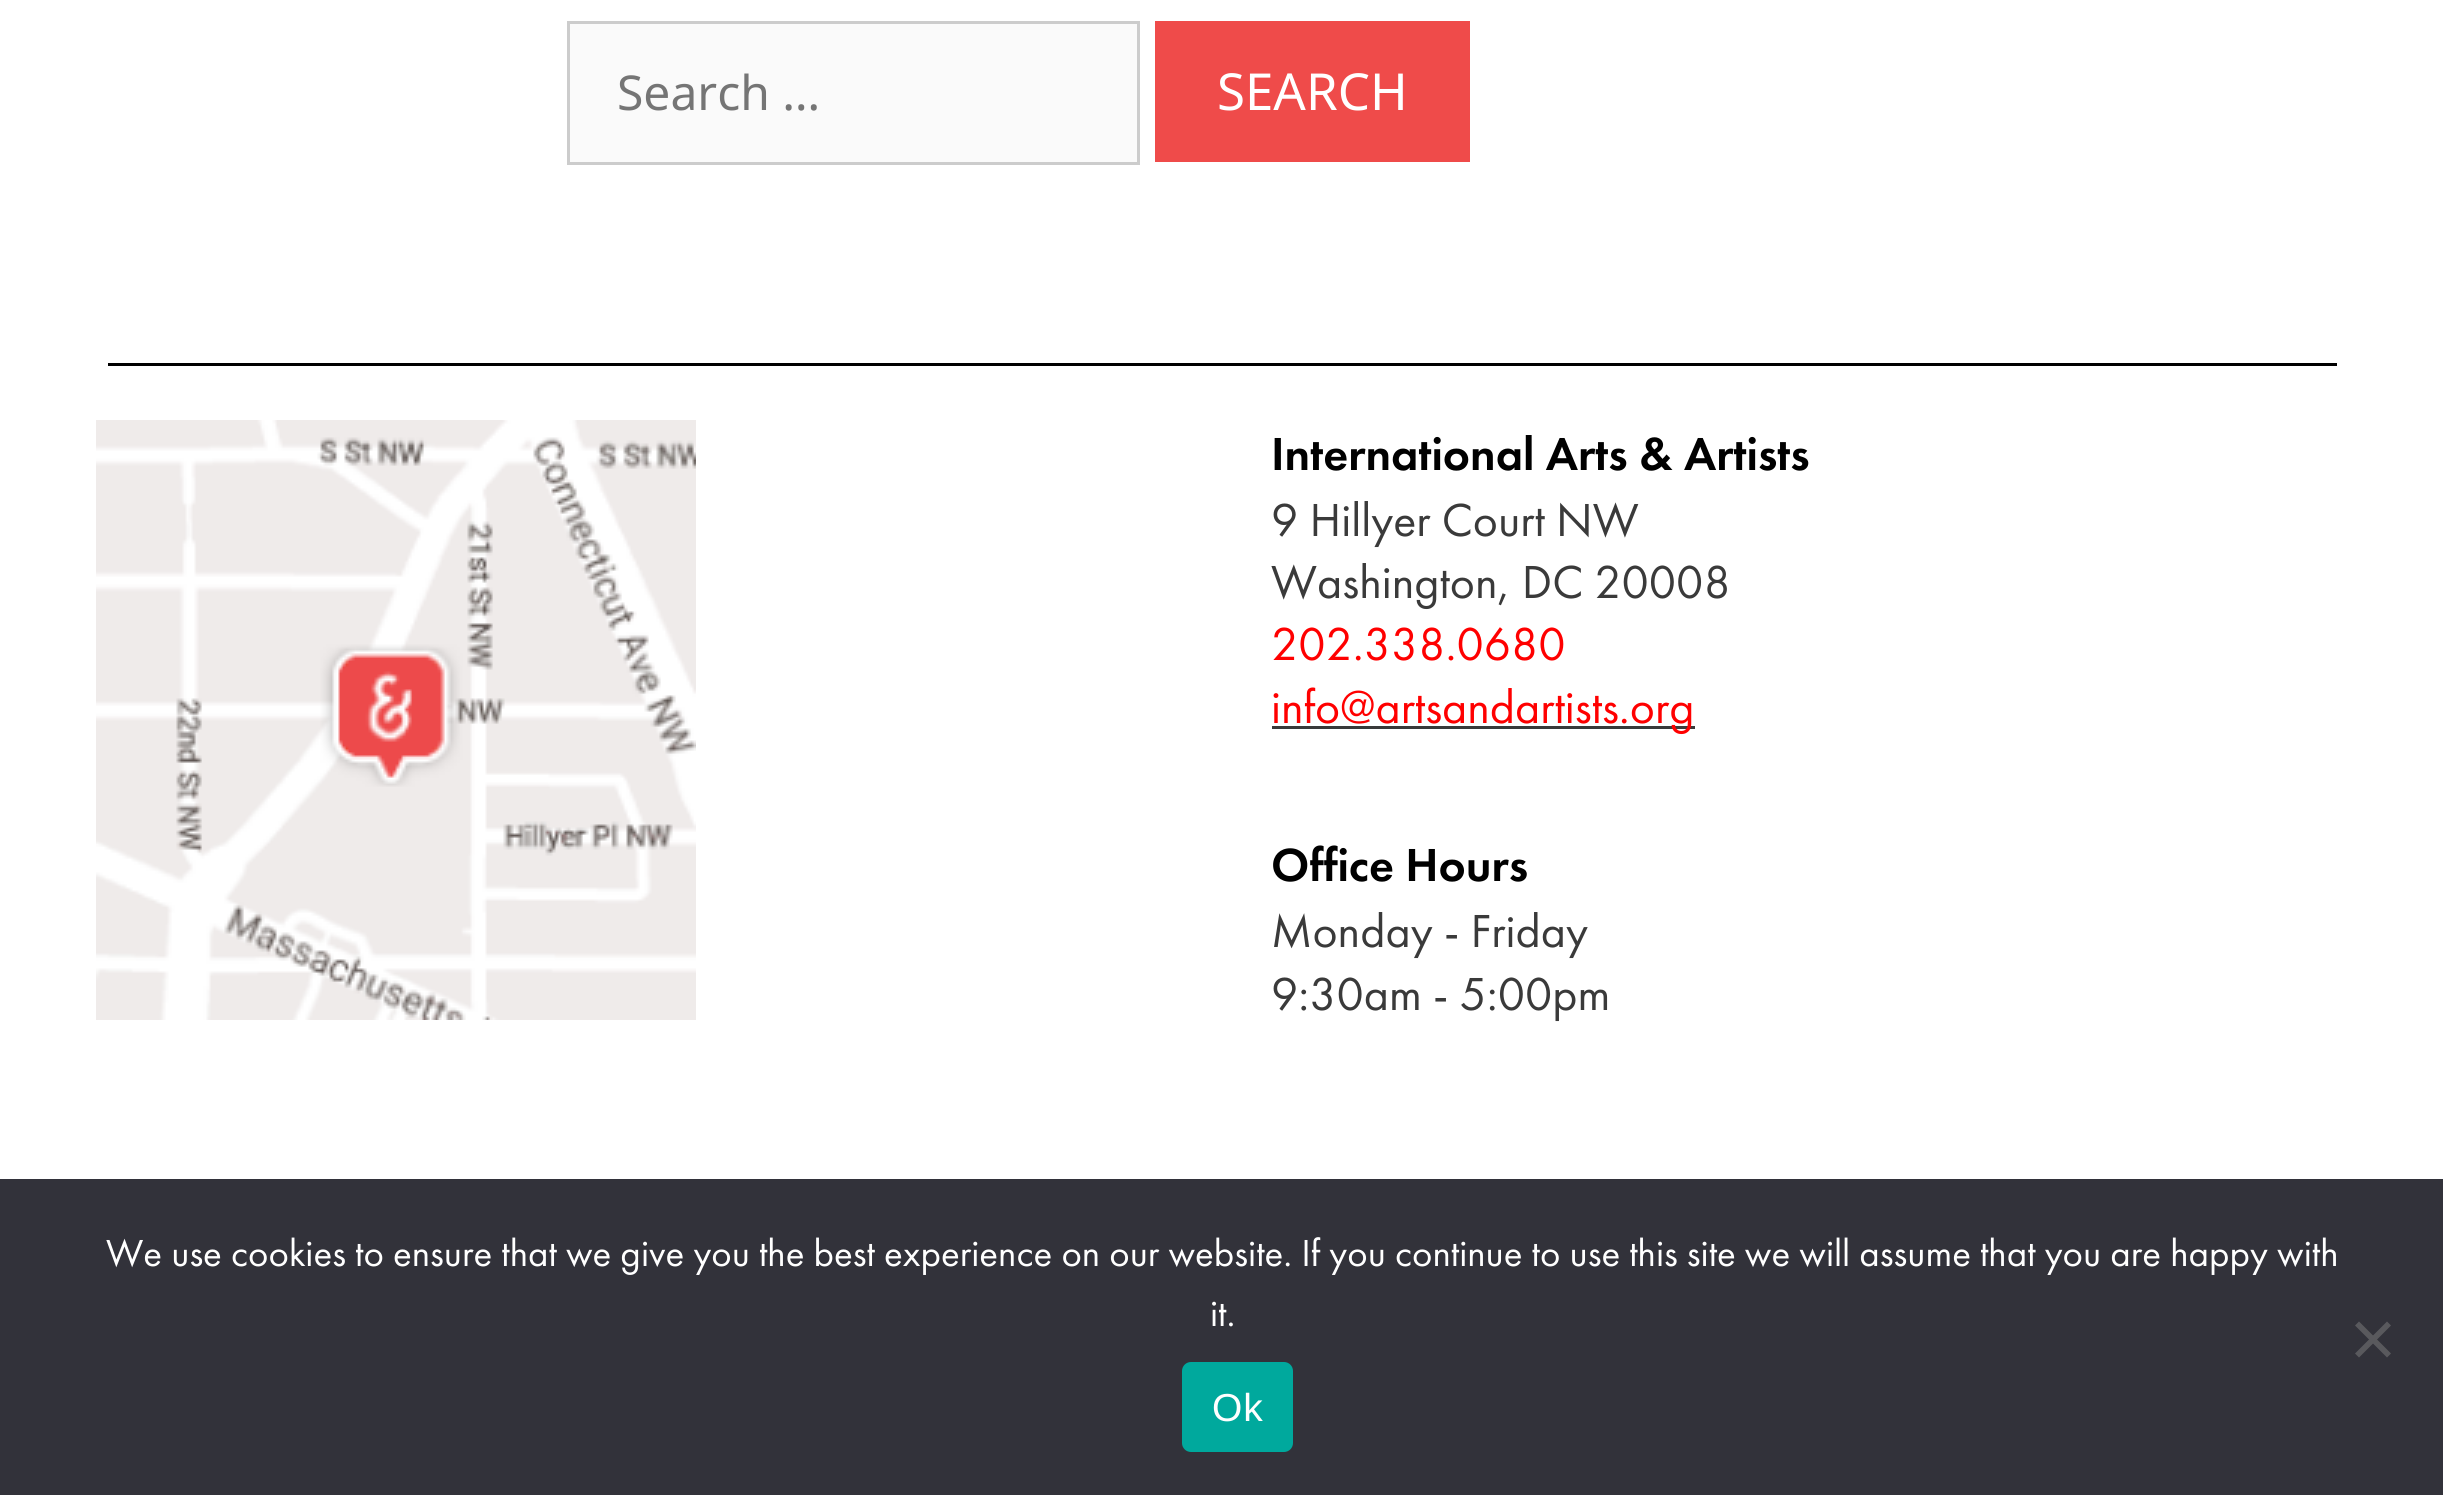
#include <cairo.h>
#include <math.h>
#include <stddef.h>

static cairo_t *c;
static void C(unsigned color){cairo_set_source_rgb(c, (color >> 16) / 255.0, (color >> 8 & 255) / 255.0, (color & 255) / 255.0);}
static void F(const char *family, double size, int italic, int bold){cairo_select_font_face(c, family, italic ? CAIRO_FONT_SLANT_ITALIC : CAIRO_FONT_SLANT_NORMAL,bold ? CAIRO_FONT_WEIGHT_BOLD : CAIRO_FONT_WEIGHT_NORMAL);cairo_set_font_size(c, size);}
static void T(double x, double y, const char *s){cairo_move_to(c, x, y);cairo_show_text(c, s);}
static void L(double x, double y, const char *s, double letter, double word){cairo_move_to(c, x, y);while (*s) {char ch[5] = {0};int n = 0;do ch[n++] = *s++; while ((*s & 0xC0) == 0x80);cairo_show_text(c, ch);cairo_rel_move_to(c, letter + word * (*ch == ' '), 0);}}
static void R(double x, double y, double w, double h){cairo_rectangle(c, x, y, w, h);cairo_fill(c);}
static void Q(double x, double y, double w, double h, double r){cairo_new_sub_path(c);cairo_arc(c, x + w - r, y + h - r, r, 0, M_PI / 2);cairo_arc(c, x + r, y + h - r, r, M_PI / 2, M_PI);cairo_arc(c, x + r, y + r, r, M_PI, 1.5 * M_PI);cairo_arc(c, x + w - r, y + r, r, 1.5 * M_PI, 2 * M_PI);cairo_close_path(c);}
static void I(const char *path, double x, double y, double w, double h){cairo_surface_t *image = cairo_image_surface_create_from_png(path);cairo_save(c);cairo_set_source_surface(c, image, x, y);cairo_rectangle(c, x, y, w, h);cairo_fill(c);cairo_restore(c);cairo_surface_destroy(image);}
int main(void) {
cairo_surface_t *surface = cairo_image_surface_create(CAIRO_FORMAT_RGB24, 2443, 1495);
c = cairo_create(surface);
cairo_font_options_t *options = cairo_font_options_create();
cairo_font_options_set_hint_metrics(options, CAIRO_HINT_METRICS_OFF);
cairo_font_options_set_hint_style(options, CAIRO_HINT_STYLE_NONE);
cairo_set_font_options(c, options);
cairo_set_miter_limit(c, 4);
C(0xffffff);
cairo_paint(c);
C(0xfafafa);
cairo_rectangle(c,568.5,22.5,570,141);
cairo_fill_preserve(c);
C(0xcccccc);
cairo_set_line_width(c,3);
cairo_stroke(c);
F("Noto Sans",48,0,0);
C(0x757575);
T(617,110,"Search …");
C(0xef4b4a);
R(1155,21,315,141);
F("Noto Sans",51,0,0);
C(0xffffff);
T(1217,110,"SEARCH");
C(0x000000);
R(108,363,2229,3);
I("1.png",96,420,600,600);
F("Futura PT Medium",48,0,0);
T(1271,470,"International Arts & Artists");
F("Futura PT",48,0,0);
C(0x3a3a3a);
T(1271,536,"9 Hillyer Court NW");
T(1271,598,"Washington, DC 20008");
C(0xff0000);
T(1271,660,"202.338.0680");
C(0x3a3a3a);
R(1272,726,423,3);
C(0xff0000);
T(1271,723,"info@artsandartists.org");
F("Futura PT Medium",48,0,0);
C(0x000000);
T(1271,881,"Office Hours");
F("Futura PT",48,0,0);
C(0x3a3a3a);
T(1271,947,"Monday - Friday");
T(1271,1010,"9:30am - 5:00pm");
C(0x32323a);
R(0,1179,2443,316);
F("Futura PT",39,0,0);
C(0xffffff);
T(106,1266,"We use cookies to ensure that we give you the best experience on our website. If you continue to use this site we will assume that you are happy with");
T(1210,1326,"it.");
C(0x59595d);
cairo_new_path(c);
cairo_move_to(c,2387,1321.5);
cairo_line_to(c,2391,1325.5);
cairo_line_to(c,2359,1357.5);
cairo_line_to(c,2355,1353.5);
cairo_close_path(c);
cairo_fill(c);
cairo_new_path(c);
cairo_move_to(c,2355,1325.5);
cairo_line_to(c,2359,1321.5);
cairo_line_to(c,2391,1353.5);
cairo_line_to(c,2387,1357.5);
cairo_close_path(c);
cairo_fill(c);
C(0x00a99d);
Q(1182,1362,111,90,9);
cairo_fill(c);
F("Liberation Sans",39,0,0);
C(0xffffff);
L(1212,1421,"Ok",1,0);
cairo_surface_write_to_png(surface, "o.png");
cairo_font_options_destroy(options);
cairo_destroy(c);
cairo_surface_destroy(surface);
return 0;
}
